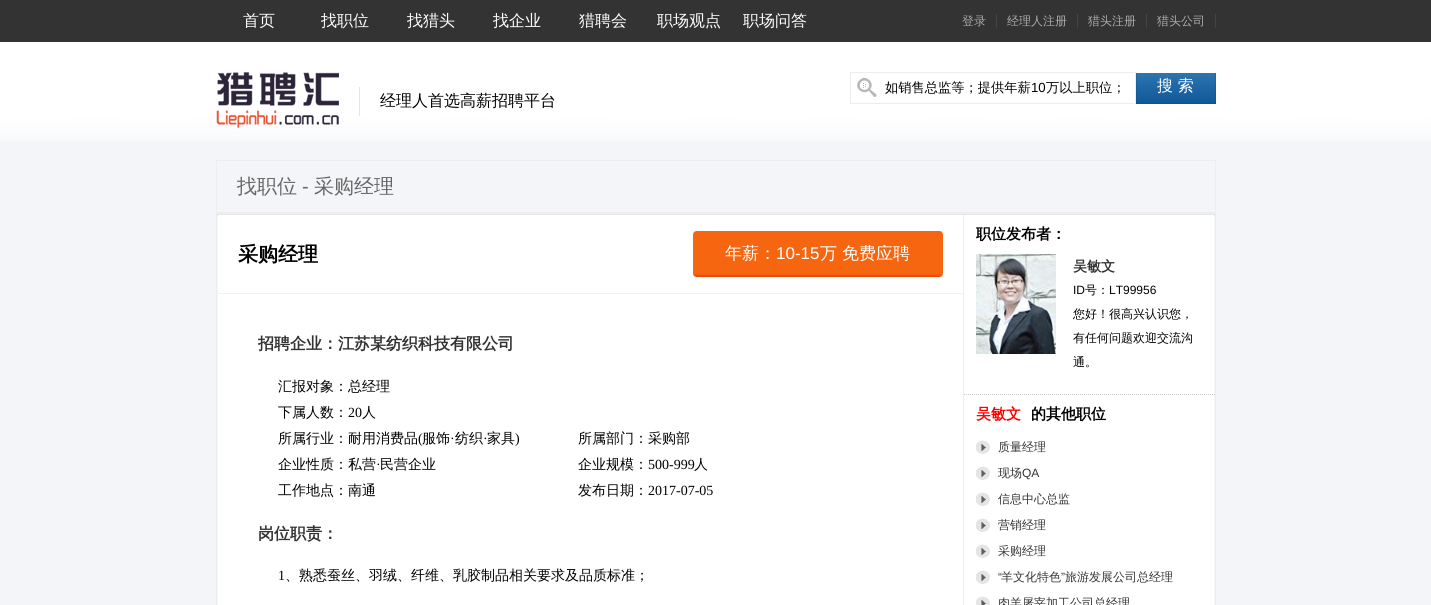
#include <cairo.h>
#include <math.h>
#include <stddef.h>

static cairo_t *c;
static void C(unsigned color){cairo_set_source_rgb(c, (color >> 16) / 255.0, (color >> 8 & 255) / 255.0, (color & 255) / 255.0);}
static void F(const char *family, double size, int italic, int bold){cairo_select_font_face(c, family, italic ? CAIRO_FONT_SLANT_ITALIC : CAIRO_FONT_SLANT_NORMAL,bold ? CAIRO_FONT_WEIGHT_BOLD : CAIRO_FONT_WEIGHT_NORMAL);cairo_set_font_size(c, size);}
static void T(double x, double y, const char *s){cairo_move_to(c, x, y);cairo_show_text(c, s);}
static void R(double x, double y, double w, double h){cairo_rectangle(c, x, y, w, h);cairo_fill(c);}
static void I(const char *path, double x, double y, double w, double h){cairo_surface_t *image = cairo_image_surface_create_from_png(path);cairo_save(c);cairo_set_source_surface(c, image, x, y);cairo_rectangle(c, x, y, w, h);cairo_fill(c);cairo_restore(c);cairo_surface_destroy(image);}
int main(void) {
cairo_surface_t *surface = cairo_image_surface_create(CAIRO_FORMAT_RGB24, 1431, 605);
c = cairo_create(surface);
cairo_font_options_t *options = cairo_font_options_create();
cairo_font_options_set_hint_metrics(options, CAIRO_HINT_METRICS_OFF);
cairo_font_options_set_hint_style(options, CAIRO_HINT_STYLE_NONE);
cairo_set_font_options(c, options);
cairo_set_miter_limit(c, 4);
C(0xf4f5f8);
cairo_paint(c);
I("1.png",0,0,1431,141);
F("WenQuanYi Zen Hei Medium",16,0,0);
C(0xffffff);
T(243,26,"首页");
T(321,26,"找职位");
T(407,26,"找猎头");
T(493,26,"找企业");
T(579,26,"猎聘会");
T(657,26,"职场观点");
T(743,26,"职场问答");
F("WenQuanYi Zen Hei Medium",12,0,0);
C(0xababab);
T(962,25,"登录");
C(0x444444);
R(996,14,1,14);
C(0xababab);
T(1007,25,"经理人注册");
C(0x444444);
R(1077,14,1,14);
C(0xababab);
T(1088,25,"猎头注册");
C(0x444444);
R(1146,14,1,14);
C(0xababab);
T(1157,25,"猎头公司");
C(0x444444);
R(1215,14,1,14);
I("2.png",857,78,20,19);
cairo_rectangle(c,850.5,72.5,285,31);
C(0xededed);
cairo_set_line_width(c,1);
cairo_stroke(c);
F("WenQuanYi Zen Hei Medium",13.25,0,0);
C(0x000000);
T(885,92,"如销售总监等；提供年薪");
F("Liberation Sans",13.25,0,0);
T(1031,92,"10");
F("WenQuanYi Zen Hei Medium",13.25,0,0);
T(1046,92,"万以上职位；");
I("3.png",1136,73,80,31);
F("WenQuanYi Zen Hei Medium",16,0,0);
C(0xffffff);
T(1157,91,"搜 索");
I("4.png",216,72,123,56);
C(0xe5e5e5);
R(359,87,1,29);
C(0x000000);
T(380,106,"经理人首选高薪招聘平台");
cairo_rectangle(c,216.5,160.5,999,52);
C(0xededed);
cairo_stroke(c);
F("WenQuanYi Zen Hei Medium",20,0,0);
C(0x666666);
T(237,193,"找职位");
F("Liberation Sans",20,0,0);
T(302,193,"-");
F("WenQuanYi Zen Hei Medium",20,0,0);
T(314,193,"采购经理");
cairo_rectangle(c,216.5,213.5,999,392);
C(0xededed);
cairo_stroke(c);
C(0xe5e6eb);
R(217,214,998,2);
C(0xffffff);
R(218,215,745,390);
C(0xf1f1f1);
R(218,293,745,1);
F("WenQuanYi Zen Hei",20,0,1);
C(0x000000);
T(238,261,"采购经理");
I("5.png",693,231,250,46);
F("WenQuanYi Zen Hei Medium",17,0,0);
C(0xffffff);
T(725,259,"年薪：");
F("Liberation Sans",17,0,0);
T(776,259,"10-15");
F("WenQuanYi Zen Hei Medium",17,0,0);
T(820,259,"万 免费应聘");
F("WenQuanYi Zen Hei",16,0,1);
C(0x333333);
T(258,349,"招聘企业：江苏某纺织科技有限公司");
F("WenQuanYi Zen Hei Medium",14,0,0);
C(0x000000);
T(278,391,"汇报对象：总经理");
T(278,417,"下属人数：");
F("Liberation Serif",14,0,0);
T(348,417,"20");
F("WenQuanYi Zen Hei Medium",14,0,0);
T(362,417,"人");
T(278,443,"所属行业：耐用消费品");
F("Liberation Serif",14,0,0);
T(418,443,"(");
F("WenQuanYi Zen Hei Medium",14,0,0);
T(422,443,"服饰");
F("Liberation Serif",14,0,0);
T(450,443,"·");
F("WenQuanYi Zen Hei Medium",14,0,0);
T(455,443,"纺织");
F("Liberation Serif",14,0,0);
T(483,443,"·");
F("WenQuanYi Zen Hei Medium",14,0,0);
T(487,443,"家具");
F("Liberation Serif",14,0,0);
T(515,443,")");
F("WenQuanYi Zen Hei Medium",14,0,0);
T(578,443,"所属部门：采购部");
T(278,469,"企业性质：私营");
F("Liberation Serif",14,0,0);
T(376,469,"·");
F("WenQuanYi Zen Hei Medium",14,0,0);
T(380,469,"民营企业");
T(578,469,"企业规模：");
F("Liberation Serif",14,0,0);
T(648,469,"500-999");
F("WenQuanYi Zen Hei Medium",14,0,0);
T(694,469,"人");
T(278,495,"工作地点：南通");
T(578,495,"发布日期：");
F("Liberation Serif",14,0,0);
T(648,495,"2017-07-05");
F("WenQuanYi Zen Hei",16,0,1);
C(0x333333);
T(258,539,"岗位职责：");
F("Liberation Serif",14,0,0);
C(0x000000);
T(278,580,"1");
F("WenQuanYi Zen Hei Medium",14,0,0);
T(285,580,"、熟悉蚕丝、羽绒、纤维、乳胶制品相关要求及品质标准；");
C(0xffffff);
R(964,215,250,390);
C(0xededed);
R(963,215,1,390);
cairo_new_path(c);
cairo_move_to(c,964,394.5);
cairo_line_to(c,1215,394.5);
C(0xcccccc);
cairo_set_dash(c,(double[]){1,1},2,0);
cairo_stroke(c);
F("WenQuanYi Zen Hei",15,0,1);
C(0x000000);
T(976,239,"职位发布者：");
I("6.png",976,254,80,100);
F("WenQuanYi Zen Hei",14,0,1);
C(0x333333);
T(1073,271,"吴敏文");
F("Liberation Sans",12,0,0);
C(0x000000);
T(1073,294,"ID");
F("WenQuanYi Zen Hei Medium",12,0,0);
T(1085,294,"号：");
F("Liberation Sans",12,0,0);
T(1109,294,"LT99956");
F("WenQuanYi Zen Hei Medium",12,0,0);
T(1073,318,"您好！很高兴认识您，");
T(1073,342,"有任何问题欢迎交流沟");
T(1073,366,"通。");
F("WenQuanYi Zen Hei",15,0,1);
C(0xff0000);
T(976,419,"吴敏文");
C(0x000000);
T(1031,419,"的其他职位");
I("7.png",976,440,14,14);
F("WenQuanYi Zen Hei Medium",12,0,0);
C(0x333333);
T(998,451,"质量经理");
I("7.png",976,466,14,14);
T(998,477,"现场");
F("Liberation Sans",12,0,0);
T(1022,477,"QA");
I("7.png",976,492,14,14);
F("WenQuanYi Zen Hei Medium",12,0,0);
T(998,503,"信息中心总监");
I("7.png",976,518,14,14);
T(998,529,"营销经理");
I("7.png",976,544,14,14);
T(998,555,"采购经理");
I("7.png",976,570,14,14);
F("Liberation Sans",12,0,0);
T(998,581,"“");
F("WenQuanYi Zen Hei Medium",12,0,0);
T(1001,581,"羊文化特色");
F("Liberation Sans",12,0,0);
T(1061,581,"”");
F("WenQuanYi Zen Hei Medium",12,0,0);
T(1065,581,"旅游发展公司总经理");
I("8.png",976,596,14,9);
T(998,607,"肉羊屠宰加工公司总经理");
cairo_surface_write_to_png(surface, "o.png");
cairo_font_options_destroy(options);
cairo_destroy(c);
cairo_surface_destroy(surface);
return 0;
}
